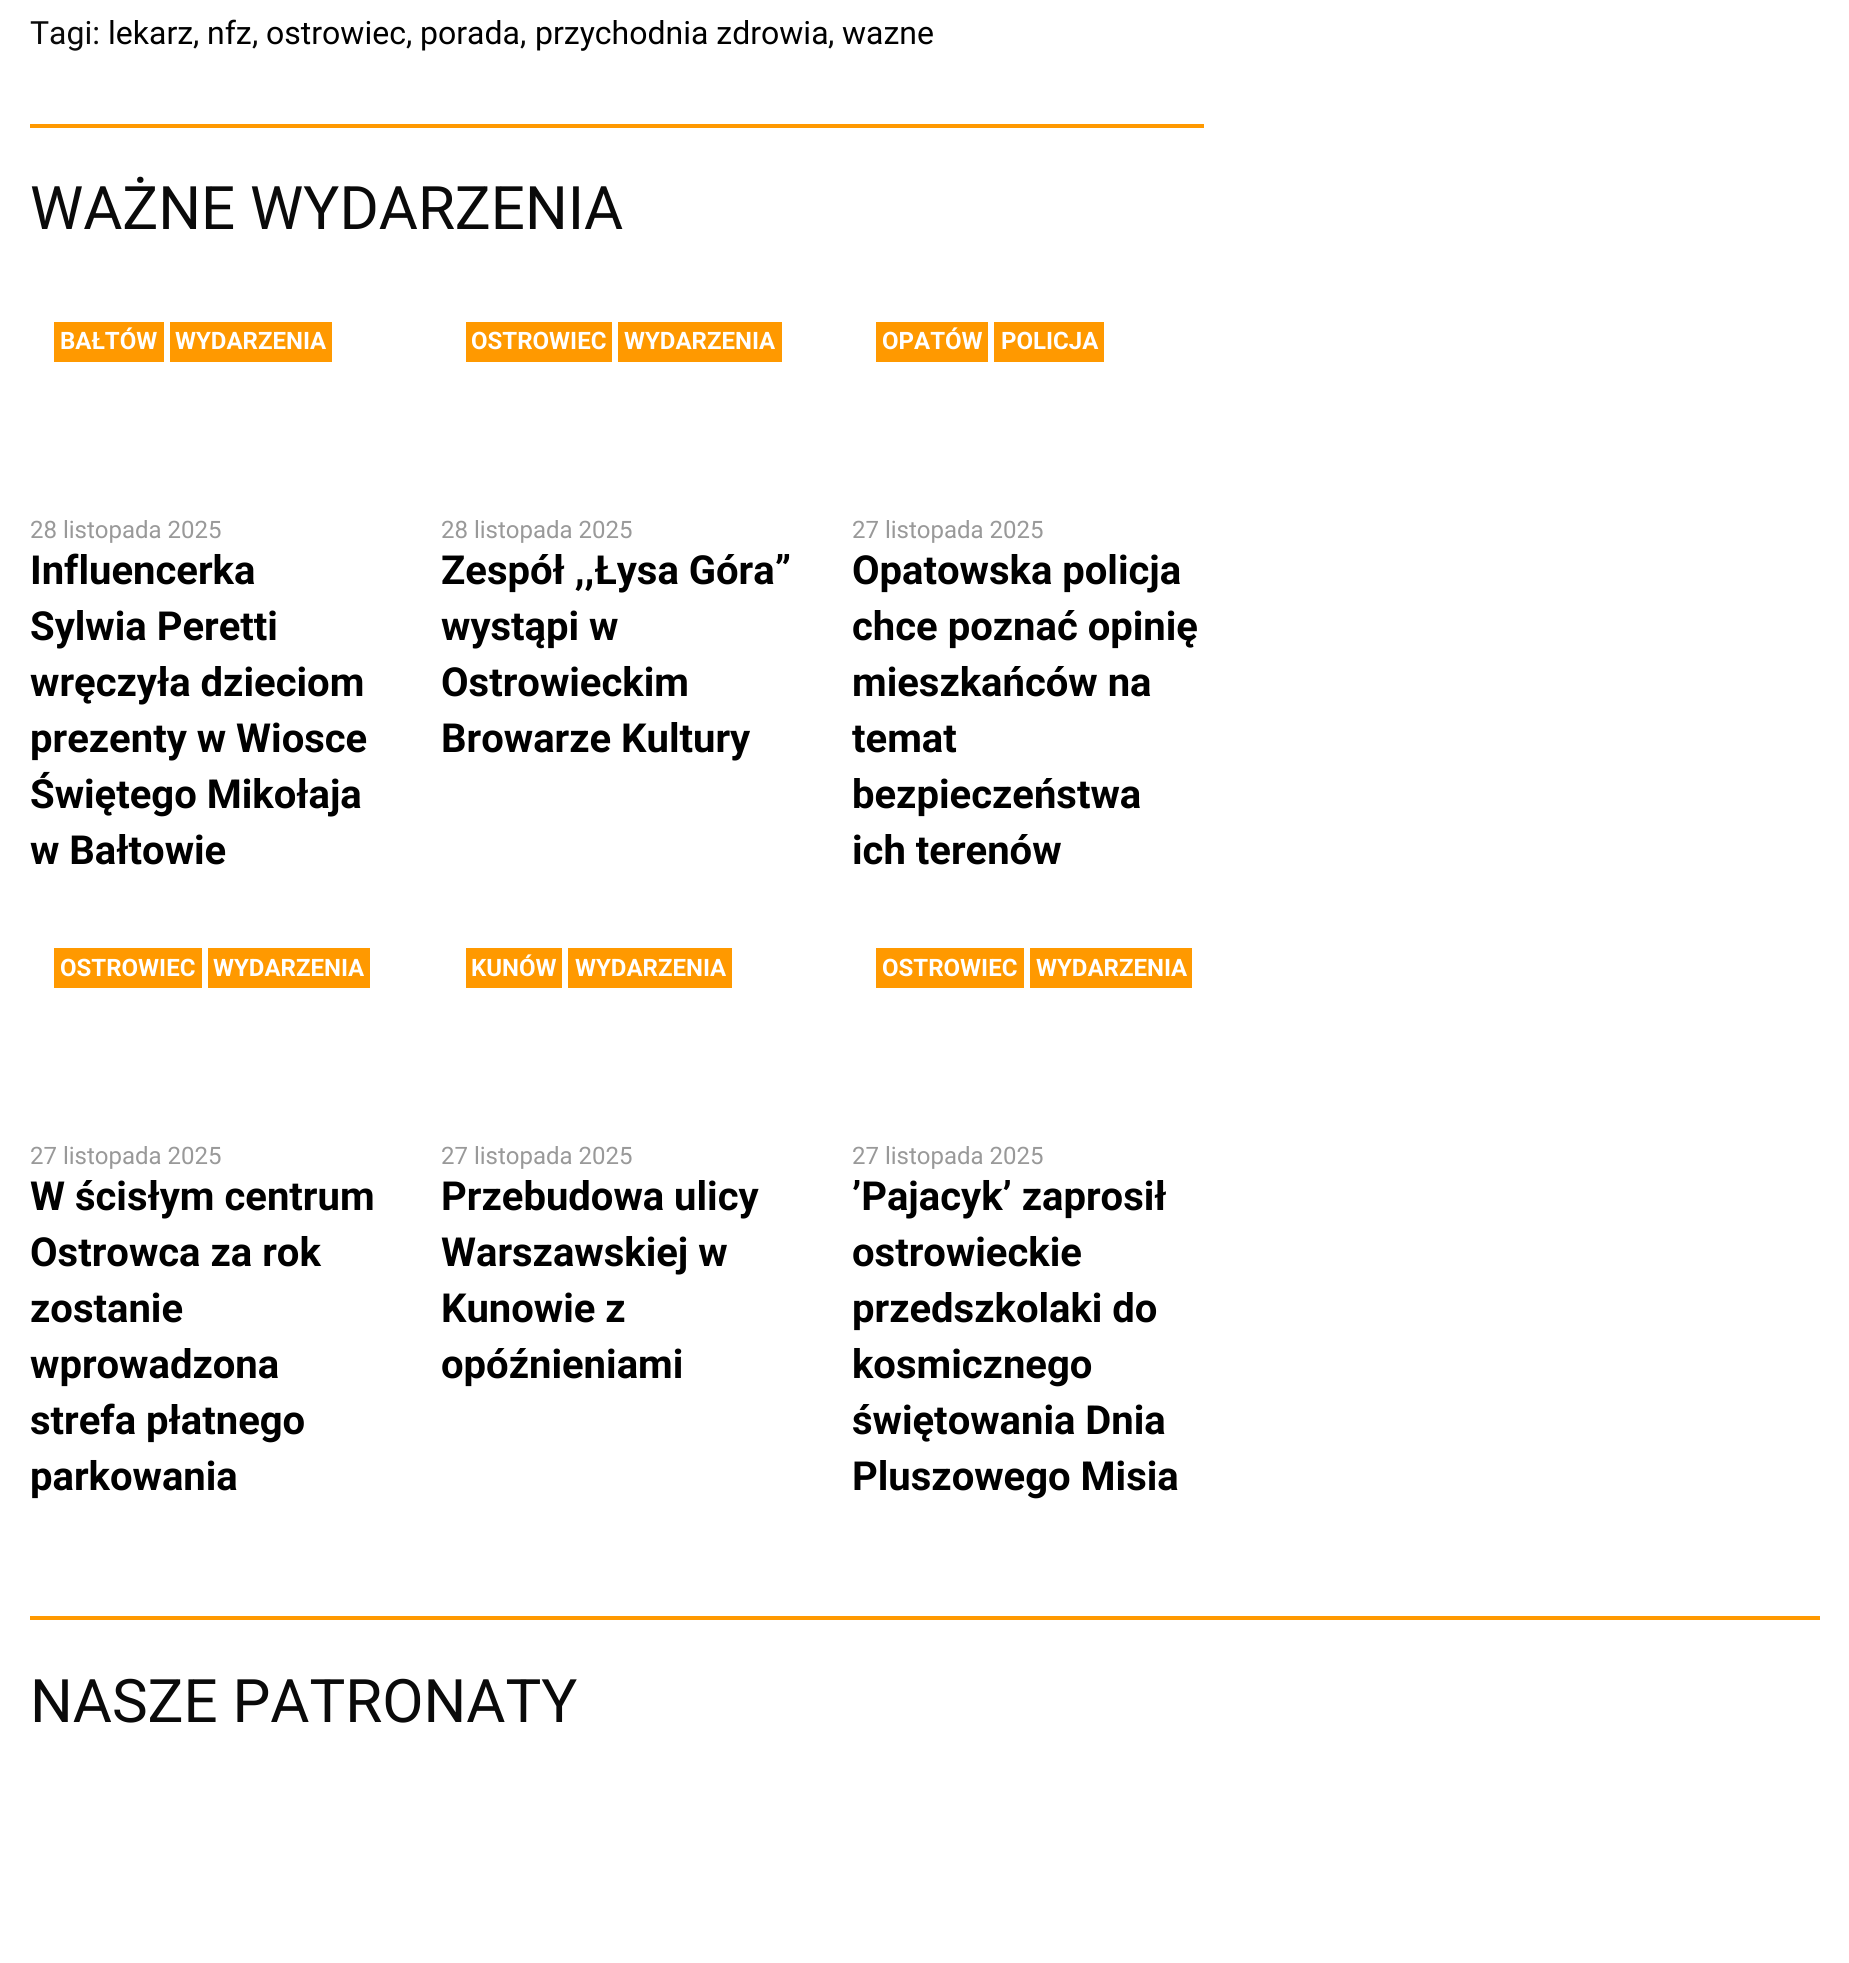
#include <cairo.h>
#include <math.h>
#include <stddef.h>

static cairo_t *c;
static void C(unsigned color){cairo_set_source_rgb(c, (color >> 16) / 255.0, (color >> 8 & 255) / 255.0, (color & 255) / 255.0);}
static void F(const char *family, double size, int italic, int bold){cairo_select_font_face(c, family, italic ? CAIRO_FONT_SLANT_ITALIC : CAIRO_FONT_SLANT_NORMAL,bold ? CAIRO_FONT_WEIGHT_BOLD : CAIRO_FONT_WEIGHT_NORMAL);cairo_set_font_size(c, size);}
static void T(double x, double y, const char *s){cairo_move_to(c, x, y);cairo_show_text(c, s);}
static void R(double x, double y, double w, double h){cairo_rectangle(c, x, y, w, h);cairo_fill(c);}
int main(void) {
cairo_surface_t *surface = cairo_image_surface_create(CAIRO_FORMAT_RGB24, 1849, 1963);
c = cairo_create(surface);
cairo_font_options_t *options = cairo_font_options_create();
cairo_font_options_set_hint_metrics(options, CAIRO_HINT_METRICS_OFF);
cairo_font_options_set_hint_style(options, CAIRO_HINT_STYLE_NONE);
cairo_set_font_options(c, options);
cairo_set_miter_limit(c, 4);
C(0xffffff);
cairo_paint(c);
F("Roboto",32,0,0);
C(0x0a0a0a);
T(30,44,"Tagi:");
C(0x000000);
T(108,44,"lekarz");
C(0x0a0a0a);
T(193,44,",");
C(0x000000);
T(207,44,"nfz");
C(0x0a0a0a);
T(252,44,",");
C(0x000000);
T(266,44,"ostrowiec");
C(0x0a0a0a);
T(406,44,",");
C(0x000000);
T(420,44,"porada");
C(0x0a0a0a);
T(520,44,",");
C(0x000000);
T(535,44,"przychodnia zdrowia");
C(0x0a0a0a);
T(828,44,",");
C(0x000000);
T(842,44,"wazne");
C(0xff9900);
R(30,124,1174,4);
F("Roboto",60,0,0);
C(0x0a0a0a);
T(30,229,"WAŻNE WYDARZENIA");
C(0xff9900);
R(54,322,110,40);
F("Roboto",24,0,1);
C(0xffffff);
T(60,349,"BAŁTÓW");
C(0xff9900);
R(170,322,162,40);
C(0xffffff);
T(175,349,"WYDARZENIA");
F("Roboto",24,0,0);
C(0x999999);
T(30,538,"28 listopada 2025");
F("Roboto",40,0,1);
C(0x000000);
T(30,584,"Influencerka");
T(30,640,"Sylwia Peretti");
T(30,696,"wręczyła dzieciom");
T(30,752,"prezenty w Wiosce");
T(30,808,"Świętego Mikołaja");
T(30,864,"w Bałtowie");
C(0xff9900);
R(466,322,146,40);
F("Roboto",24,0,1);
C(0xffffff);
T(471,349,"OSTROWIEC");
C(0xff9900);
R(618,322,164,40);
C(0xffffff);
T(624,349,"WYDARZENIA");
F("Roboto",24,0,0);
C(0x999999);
T(441,538,"28 listopada 2025");
F("Roboto",40,0,1);
C(0x000000);
T(441,584,"Zespół ,,Łysa Góra”");
T(441,640,"wystąpi w");
T(441,696,"Ostrowieckim");
T(441,752,"Browarze Kultury");
C(0xff9900);
R(876,322,112,40);
F("Roboto",24,0,1);
C(0xffffff);
T(882,349,"OPATÓW");
C(0xff9900);
R(994,322,110,40);
C(0xffffff);
T(1001,349,"POLICJA");
F("Roboto",24,0,0);
C(0x999999);
T(852,538,"27 listopada 2025");
F("Roboto",40,0,1);
C(0x000000);
T(852,584,"Opatowska policja");
T(852,640,"chce poznać opinię");
T(852,696,"mieszkańców na");
T(852,752,"temat");
T(852,808,"bezpieczeństwa");
T(852,864,"ich terenów");
C(0xff9900);
R(54,948,148,40);
F("Roboto",24,0,1);
C(0xffffff);
T(60,976,"OSTROWIEC");
C(0xff9900);
R(208,948,162,40);
C(0xffffff);
T(213,976,"WYDARZENIA");
F("Roboto",24,0,0);
C(0x999999);
T(30,1164,"27 listopada 2025");
F("Roboto",40,0,1);
C(0x000000);
T(30,1210,"W ścisłym centrum");
T(30,1266,"Ostrowca za rok");
T(30,1322,"zostanie");
T(30,1378,"wprowadzona");
T(30,1434,"strefa płatnego");
T(30,1490,"parkowania");
C(0xff9900);
R(466,948,96,40);
F("Roboto",24,0,1);
C(0xffffff);
T(471,976,"KUNÓW");
C(0xff9900);
R(568,948,164,40);
C(0xffffff);
T(575,976,"WYDARZENIA");
F("Roboto",24,0,0);
C(0x999999);
T(441,1164,"27 listopada 2025");
F("Roboto",40,0,1);
C(0x000000);
T(441,1210,"Przebudowa ulicy");
T(441,1266,"Warszawskiej w");
T(441,1322,"Kunowie z");
T(441,1378,"opóźnieniami");
C(0xff9900);
R(876,948,148,40);
F("Roboto",24,0,1);
C(0xffffff);
T(882,976,"OSTROWIEC");
C(0xff9900);
R(1030,948,162,40);
C(0xffffff);
T(1036,976,"WYDARZENIA");
F("Roboto",24,0,0);
C(0x999999);
T(852,1164,"27 listopada 2025");
F("Roboto",40,0,1);
C(0x000000);
T(852,1210,"’Pajacyk’ zaprosił");
T(852,1266,"ostrowieckie");
T(852,1322,"przedszkolaki do");
T(852,1378,"kosmicznego");
T(852,1434,"świętowania Dnia");
T(852,1490,"Pluszowego Misia");
C(0xff9900);
R(30,1616,1790,4);
F("Roboto",60,0,0);
C(0x0a0a0a);
T(30,1722,"NASZE PATRONATY");
cairo_surface_write_to_png(surface, "o.png");
cairo_font_options_destroy(options);
cairo_destroy(c);
cairo_surface_destroy(surface);
return 0;
}
